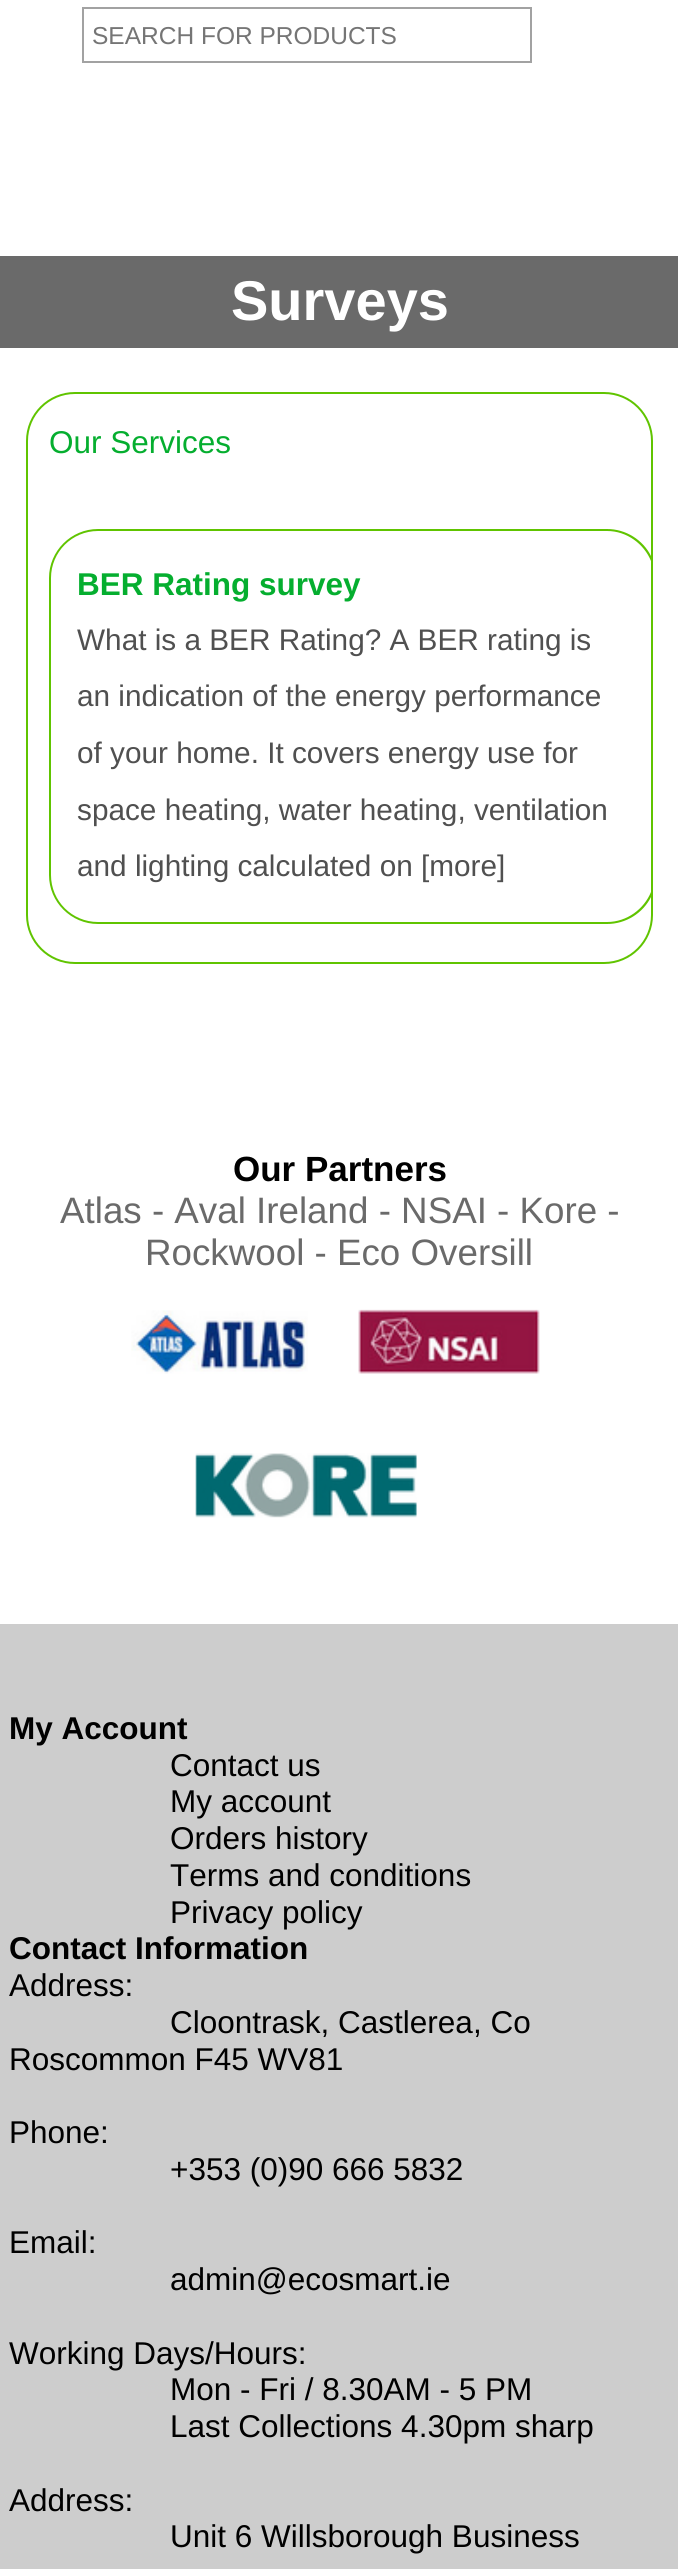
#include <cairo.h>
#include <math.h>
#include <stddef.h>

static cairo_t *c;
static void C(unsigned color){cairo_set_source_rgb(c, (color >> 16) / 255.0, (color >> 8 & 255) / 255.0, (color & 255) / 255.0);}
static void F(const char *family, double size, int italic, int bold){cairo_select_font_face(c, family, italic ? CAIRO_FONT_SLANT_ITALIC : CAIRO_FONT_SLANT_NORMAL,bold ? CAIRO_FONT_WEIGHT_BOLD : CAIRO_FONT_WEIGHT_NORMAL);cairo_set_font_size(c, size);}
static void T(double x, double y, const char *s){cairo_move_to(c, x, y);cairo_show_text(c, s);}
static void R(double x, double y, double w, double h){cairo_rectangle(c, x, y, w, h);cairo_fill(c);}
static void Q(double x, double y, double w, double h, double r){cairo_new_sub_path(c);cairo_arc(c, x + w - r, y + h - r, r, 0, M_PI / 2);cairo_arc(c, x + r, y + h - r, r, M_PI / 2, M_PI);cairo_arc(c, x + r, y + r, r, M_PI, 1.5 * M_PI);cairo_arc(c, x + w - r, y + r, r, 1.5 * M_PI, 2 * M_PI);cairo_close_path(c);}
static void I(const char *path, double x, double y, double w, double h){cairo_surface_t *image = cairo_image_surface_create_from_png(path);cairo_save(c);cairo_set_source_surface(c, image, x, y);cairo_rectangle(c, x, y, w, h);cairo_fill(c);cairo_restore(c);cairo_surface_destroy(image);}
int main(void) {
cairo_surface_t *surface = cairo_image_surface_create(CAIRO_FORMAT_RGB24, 678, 2569);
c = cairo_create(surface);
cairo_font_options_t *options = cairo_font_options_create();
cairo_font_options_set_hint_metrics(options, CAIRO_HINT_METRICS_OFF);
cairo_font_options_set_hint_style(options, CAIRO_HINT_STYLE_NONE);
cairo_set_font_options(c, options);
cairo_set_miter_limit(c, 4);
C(0xffffff);
cairo_paint(c);
cairo_rectangle(c,83,8,448,54);
C(0xa2a2a2);
cairo_stroke(c);
F("Liberation Sans",24.5,0,0);
C(0x757575);
T(92,44,"SEARCH FOR PRODUCTS");
C(0x6a6a6a);
R(0,256,678,92);
F("Liberation Sans",56,0,1);
C(0xffffff);
T(231,320,"Surveys");
Q(27,393,625,570,48);
C(0x60c400);
cairo_stroke(c);
F("Liberation Sans",31.5,0,0);
C(0x05ae2f);
T(49,453,"Our Services");
C(0x60c400);
cairo_new_path(c);
cairo_move_to(c,98,529);
cairo_curve_to(c,71,529,49,551,49,578);
cairo_line_to(c,49,875);
cairo_curve_to(c,49,902,71,924,98,924);
cairo_line_to(c,607,924);
cairo_curve_to(c,626,924,643,913,651,897);
cairo_line_to(c,651,892);
cairo_curve_to(c,644,909,627,922,607,922);
cairo_line_to(c,98,922);
cairo_curve_to(c,72,922,51,901,51,875);
cairo_line_to(c,51,578);
cairo_curve_to(c,51,552,72,531,98,531);
cairo_line_to(c,607,531);
cairo_curve_to(c,627,531,644,544,651,561);
cairo_line_to(c,651,556);
cairo_curve_to(c,643,540,626,529,607,529);
cairo_close_path(c);
cairo_fill(c);
F("Liberation Sans",31.5,0,1);
C(0x05ae2f);
T(77,595,"BER Rating survey");
F("Liberation Sans",29.75,0,0);
C(0x505050);
T(77,650,"What is a BER Rating? A BER rating is");
T(77,706,"an indication of the energy performance");
T(77,763,"of your home. It covers energy use for");
T(77,820,"space heating, water heating, ventilation");
T(77,876,"and lighting calculated on [more]");
F("Liberation Sans",35,0,1);
C(0x000000);
T(233,1181,"Our Partners");
F("Liberation Sans",36.75,0,0);
C(0x6a6a6a);
T(60,1223,"Atlas - Aval Ireland - NSAI - Kore -");
T(145,1265,"Rockwool - Eco Oversill");
I("1.png",131,1310,177,64);
I("2.png",358,1309,182,65);
I("3.png",195,1453,222,65);
C(0xcdcdcd);
R(0,1624,678,945);
F("Liberation Sans",31.5,0,1);
C(0x000000);
T(9,1739,"My Account");
F("Liberation Sans",31.5,0,0);
T(170,1776,"Contact us");
T(170,1812,"My account");
T(170,1849,"Orders history");
T(170,1886,"Terms and conditions");
T(170,1923,"Privacy policy");
F("Liberation Sans",31.5,0,1);
T(9,1959,"Contact Information");
F("Liberation Sans",31.5,0,0);
T(9,1996,"Address:");
T(170,2033,"Cloontrask, Castlerea, Co");
T(9,2070,"Roscommon F45 WV81");
T(9,2143,"Phone:");
T(170,2180,"+353 (0)90 666 5832");
T(9,2253,"Email:");
T(170,2290,"admin@ecosmart.ie");
T(9,2364,"Working Days/Hours:");
T(170,2400,"Mon - Fri / 8.30AM - 5 PM");
T(170,2437,"Last Collections 4.30pm sharp");
T(9,2511,"Address:");
T(170,2547,"Unit 6 Willsborough Business");
cairo_surface_write_to_png(surface, "o.png");
cairo_font_options_destroy(options);
cairo_destroy(c);
cairo_surface_destroy(surface);
return 0;
}
